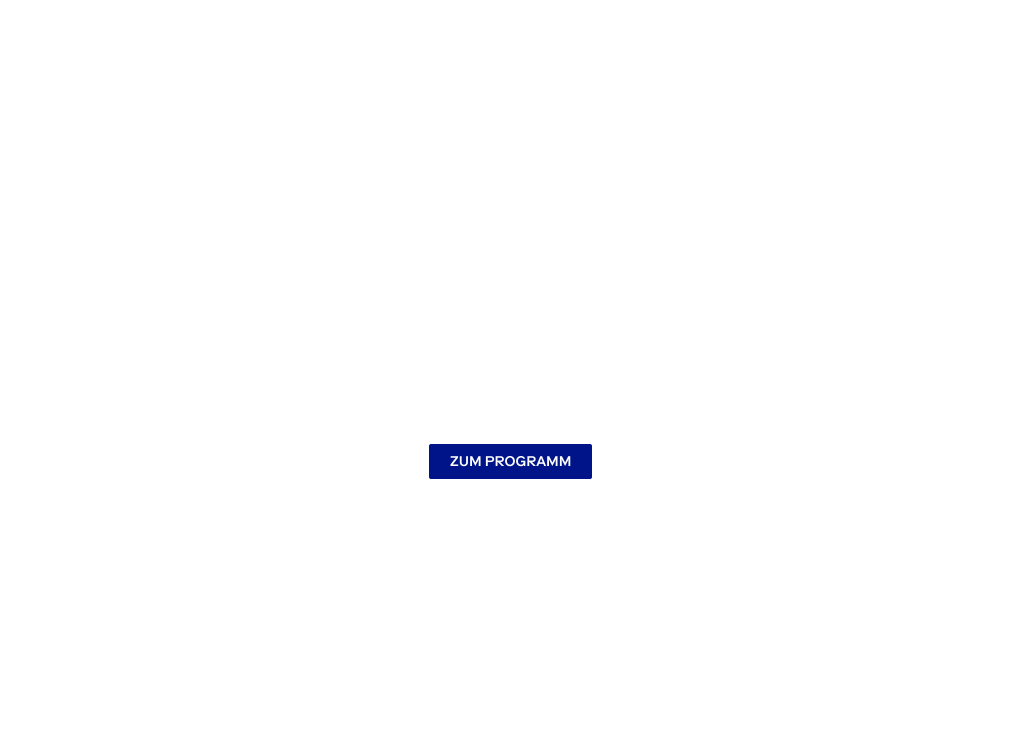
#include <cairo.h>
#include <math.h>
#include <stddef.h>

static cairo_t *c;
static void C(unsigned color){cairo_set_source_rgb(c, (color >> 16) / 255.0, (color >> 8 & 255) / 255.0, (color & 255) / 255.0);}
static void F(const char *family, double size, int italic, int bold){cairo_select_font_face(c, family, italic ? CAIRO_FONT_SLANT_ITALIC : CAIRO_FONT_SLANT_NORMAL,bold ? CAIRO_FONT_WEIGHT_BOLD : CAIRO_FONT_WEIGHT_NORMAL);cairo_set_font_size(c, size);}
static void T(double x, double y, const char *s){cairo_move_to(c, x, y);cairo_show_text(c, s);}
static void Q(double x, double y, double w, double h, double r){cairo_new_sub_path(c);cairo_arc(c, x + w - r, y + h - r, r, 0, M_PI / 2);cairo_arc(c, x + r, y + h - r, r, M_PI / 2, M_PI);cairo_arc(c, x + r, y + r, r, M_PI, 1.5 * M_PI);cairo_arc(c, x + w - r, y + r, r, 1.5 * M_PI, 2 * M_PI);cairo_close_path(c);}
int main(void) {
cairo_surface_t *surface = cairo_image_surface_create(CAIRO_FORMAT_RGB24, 1021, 739);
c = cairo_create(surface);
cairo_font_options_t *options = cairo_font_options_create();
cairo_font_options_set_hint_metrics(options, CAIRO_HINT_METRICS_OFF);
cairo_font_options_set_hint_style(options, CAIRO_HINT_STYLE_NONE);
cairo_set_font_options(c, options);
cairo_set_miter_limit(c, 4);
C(0xffffff);
cairo_paint(c);
C(0x001489);
Q(429.5,444.5,162,34,1.5);
cairo_fill_preserve(c);
cairo_set_line_width(c,1);
cairo_stroke(c);
F("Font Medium",14,0,0);
C(0xffffff);
T(450,466,"ZUM PROGRAMM");
cairo_surface_write_to_png(surface, "o.png");
cairo_font_options_destroy(options);
cairo_destroy(c);
cairo_surface_destroy(surface);
return 0;
}
